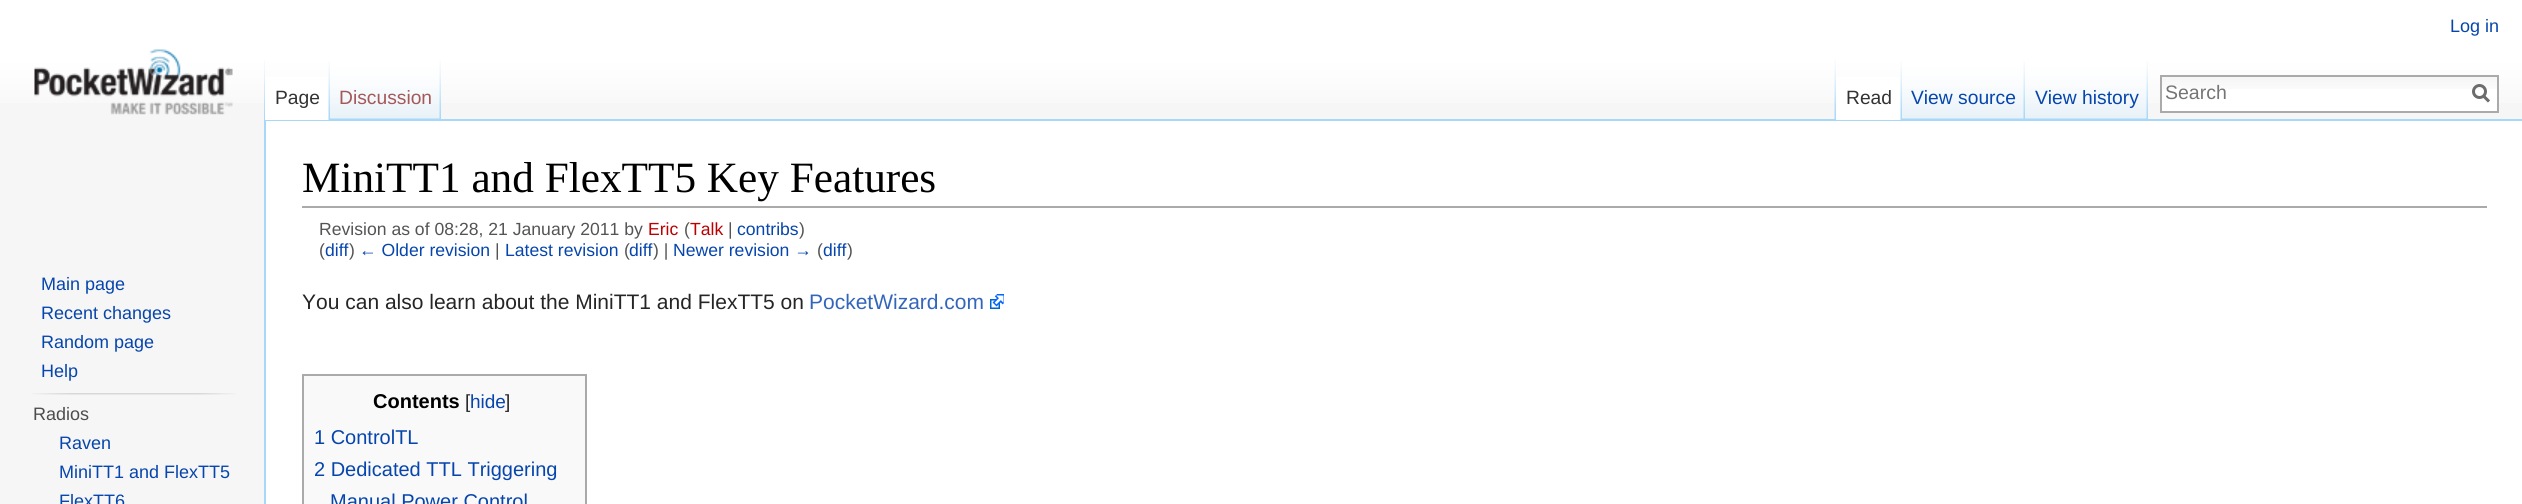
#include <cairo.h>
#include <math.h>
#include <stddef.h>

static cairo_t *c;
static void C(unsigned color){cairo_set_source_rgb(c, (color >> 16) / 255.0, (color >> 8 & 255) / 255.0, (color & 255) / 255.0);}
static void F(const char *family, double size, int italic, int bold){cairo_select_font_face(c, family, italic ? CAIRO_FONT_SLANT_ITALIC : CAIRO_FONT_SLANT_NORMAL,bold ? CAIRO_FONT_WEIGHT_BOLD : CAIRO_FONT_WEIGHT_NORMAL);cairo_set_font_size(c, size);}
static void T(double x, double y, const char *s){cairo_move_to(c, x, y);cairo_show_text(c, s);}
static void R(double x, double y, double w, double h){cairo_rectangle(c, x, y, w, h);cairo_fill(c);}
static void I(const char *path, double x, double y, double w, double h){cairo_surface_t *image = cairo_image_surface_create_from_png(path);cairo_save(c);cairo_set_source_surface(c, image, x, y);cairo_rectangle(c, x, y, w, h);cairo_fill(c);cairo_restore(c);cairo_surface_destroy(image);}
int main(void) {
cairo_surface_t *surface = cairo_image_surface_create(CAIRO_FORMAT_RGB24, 2522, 504);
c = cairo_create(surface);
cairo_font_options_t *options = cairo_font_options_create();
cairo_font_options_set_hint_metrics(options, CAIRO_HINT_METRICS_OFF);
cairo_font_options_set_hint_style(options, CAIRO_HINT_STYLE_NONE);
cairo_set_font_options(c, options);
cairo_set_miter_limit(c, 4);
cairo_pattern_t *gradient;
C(0xf6f6f6);
cairo_paint(c);
gradient = cairo_pattern_create_linear(1262,0,1262,120);
cairo_pattern_add_color_stop_rgba(gradient,.5,1,1,1,1);
cairo_pattern_add_color_stop_rgba(gradient,1,0.965,0.965,0.965,1);
cairo_set_source(c,gradient);
cairo_pattern_destroy(gradient);
R(0,0,2522,103);
F("Liberation Sans",18,0,0);
C(0x0645ad);
T(2450,32,"Log in");
I("1.png",264,60,1,59);
C(0xa7d7f9);
R(264,119,2258,2);
R(264,119,2,385);
C(0xffffff);
R(265,77,65,43);
I("2.png",328,61,2,59);
F("Liberation Sans",19.25,0,0);
C(0x333333);
T(275,104,"Page");
I("3.png",330,60,111,60);
I("4.png",439,61,2,58);
C(0xa55858);
T(339,104,"Discussion");
I("5.png",1834,60,2,59);
C(0xffffff);
R(1836,77,66,43);
I("2.png",1900,61,2,59);
C(0x333333);
T(1846,104,"Read");
I("6.png",1902,60,123,60);
I("4.png",2023,61,2,58);
C(0x0645ad);
T(1911,104,"View source");
I("6.png",2025,60,123,60);
I("4.png",2146,61,2,58);
T(2035,104,"View history");
C(0xffffff);
R(2162,89,335,22);
I("7.png",2162,77,335,12);
cairo_rectangle(c,2161,76,337,36);
C(0xaaaaaa);
cairo_stroke(c);
F("Liberation Sans",19.5,0,0);
C(0x757575);
T(2165,99,"Search");
cairo_new_path(c);
cairo_move_to(c,2489,101.5);
cairo_line_to(c,2483,95.5);
C(0x6c6c6c);
cairo_set_line_width(c,3);
cairo_stroke(c);
cairo_arc(c,2479.5,91.5,6,0,2 * M_PI);
cairo_stroke(c);
I("8.png",34,49,199,66);
F("Liberation Sans",18,0,0);
C(0x0645ad);
T(41,290,"Main page");
T(41,319,"Recent changes");
T(41,348,"Random page");
T(41,377,"Help");
I("9.png",32,393,204,2);
C(0x4d4d4d);
T(33,420,"Radios");
C(0x0645ad);
T(59,449,"Raven");
T(59,478,"MiniTT1 and FlexTT5");
T(59,507,"FlexTT6");
C(0xffffff);
R(266,121,2256,383);
C(0xaaaaaa);
R(302,206,2185,2);
F("Liberation Serif",43.25,0,0);
C(0x000000);
T(302,192,"MiniTT1 and FlexTT5 Key Features");
F("Liberation Sans",17.6,0,0);
C(0x545454);
T(319,235,"Revision as of 08:28, 21 January 2011 by");
C(0xba0000);
T(648,235,"Eric");
C(0x545454);
T(684,235,"(");
C(0xba0000);
T(690,235,"Talk");
C(0x545454);
T(728,235,"|");
C(0x0645ad);
T(737,235,"contribs");
C(0x545454);
T(799,235,")");
T(319,256,"(");
C(0x0645ad);
T(325,256,"diff");
C(0x545454);
T(349,256,")");
C(0x0645ad);
T(359,256,"← Older revision");
C(0x545454);
T(495,256,"|");
C(0x0645ad);
T(505,256,"Latest revision");
C(0x545454);
T(624,256,"(");
C(0x0645ad);
T(629,256,"diff");
C(0x545454);
T(653,256,") |");
C(0x0645ad);
T(673,256,"Newer revision →");
C(0x545454);
T(817,256,"(");
C(0x0645ad);
T(823,256,"diff");
C(0x545454);
T(847,256,")");
F("Liberation Sans",21,0,0);
C(0x252525);
T(302,309,"You can also learn about the MiniTT1 and FlexTT5 on");
C(0x3366bb);
T(809,309,"PocketWizard.com");
I("10.png",990,294,14,15);
C(0xf9f9f9);
cairo_rectangle(c,303,375,283,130);
cairo_fill_preserve(c);
C(0xaaaaaa);
cairo_set_line_width(c,2);
cairo_stroke(c);
F("Liberation Sans",20,0,1);
C(0x000000);
T(373,408,"Contents");
F("Liberation Sans",19,0,0);
C(0x252525);
T(465,408,"[");
C(0x0645ad);
T(470,408,"hide");
C(0x252525);
T(505,408,"]");
F("Liberation Sans",20,0,0);
C(0x0645ad);
T(314,444,"1 ControlTL");
T(314,476,"2 Dedicated TTL Triggering");
T(330,508,"Manual Power Control");
cairo_surface_write_to_png(surface, "o.png");
cairo_font_options_destroy(options);
cairo_destroy(c);
cairo_surface_destroy(surface);
return 0;
}
